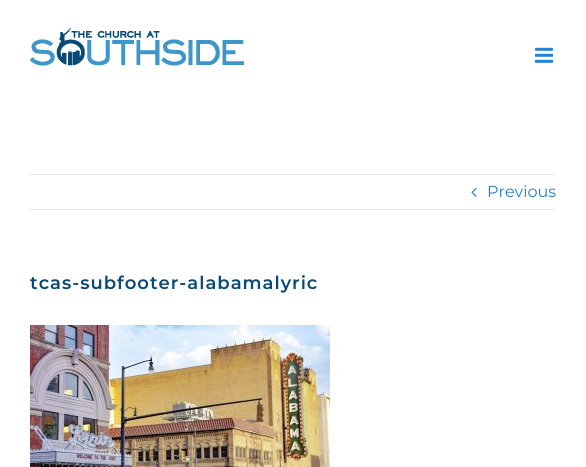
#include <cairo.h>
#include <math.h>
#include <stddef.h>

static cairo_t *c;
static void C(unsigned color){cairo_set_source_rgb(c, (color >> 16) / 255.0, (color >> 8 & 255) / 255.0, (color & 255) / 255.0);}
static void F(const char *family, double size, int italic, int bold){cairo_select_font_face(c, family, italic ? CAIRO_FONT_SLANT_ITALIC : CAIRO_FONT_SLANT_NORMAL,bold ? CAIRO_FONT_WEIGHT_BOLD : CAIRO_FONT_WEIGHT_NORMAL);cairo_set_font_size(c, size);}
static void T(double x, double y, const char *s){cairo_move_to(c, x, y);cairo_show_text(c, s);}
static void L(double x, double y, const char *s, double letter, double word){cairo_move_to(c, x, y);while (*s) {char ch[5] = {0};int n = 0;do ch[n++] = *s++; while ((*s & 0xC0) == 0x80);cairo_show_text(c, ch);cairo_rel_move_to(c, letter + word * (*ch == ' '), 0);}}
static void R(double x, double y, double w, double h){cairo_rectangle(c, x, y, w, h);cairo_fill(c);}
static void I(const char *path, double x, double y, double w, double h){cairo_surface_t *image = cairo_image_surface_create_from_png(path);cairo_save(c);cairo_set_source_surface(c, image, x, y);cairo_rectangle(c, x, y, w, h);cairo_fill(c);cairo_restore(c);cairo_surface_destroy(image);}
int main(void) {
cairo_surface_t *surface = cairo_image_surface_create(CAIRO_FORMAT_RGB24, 586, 467);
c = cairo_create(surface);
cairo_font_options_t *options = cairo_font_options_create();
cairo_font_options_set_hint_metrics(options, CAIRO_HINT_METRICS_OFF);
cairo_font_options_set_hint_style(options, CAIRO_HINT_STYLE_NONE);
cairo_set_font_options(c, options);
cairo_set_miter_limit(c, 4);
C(0xffffff);
cairo_paint(c);
I("1.png",30,28,214,38);
I("2.png",535,47,18,16);
C(0xeae8e8);
R(30,174,526,1);
R(30,209,526,1);
I("3.png",471,188,6,9);
F("Montserrat",16,0,0);
C(0x2483d0);
T(487,197,"Previous");
F("Montserrat SemiBold",18,0,0);
C(0x084975);
L(30,289,"tcas-subfooter-alabamalyric",1,0);
I("4.png",30,325,300,142);
cairo_surface_write_to_png(surface, "o.png");
cairo_font_options_destroy(options);
cairo_destroy(c);
cairo_surface_destroy(surface);
return 0;
}
